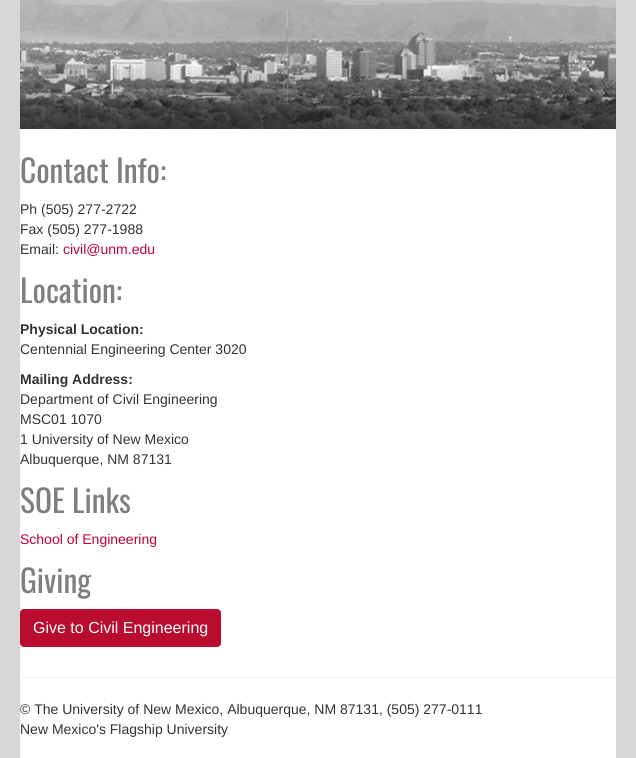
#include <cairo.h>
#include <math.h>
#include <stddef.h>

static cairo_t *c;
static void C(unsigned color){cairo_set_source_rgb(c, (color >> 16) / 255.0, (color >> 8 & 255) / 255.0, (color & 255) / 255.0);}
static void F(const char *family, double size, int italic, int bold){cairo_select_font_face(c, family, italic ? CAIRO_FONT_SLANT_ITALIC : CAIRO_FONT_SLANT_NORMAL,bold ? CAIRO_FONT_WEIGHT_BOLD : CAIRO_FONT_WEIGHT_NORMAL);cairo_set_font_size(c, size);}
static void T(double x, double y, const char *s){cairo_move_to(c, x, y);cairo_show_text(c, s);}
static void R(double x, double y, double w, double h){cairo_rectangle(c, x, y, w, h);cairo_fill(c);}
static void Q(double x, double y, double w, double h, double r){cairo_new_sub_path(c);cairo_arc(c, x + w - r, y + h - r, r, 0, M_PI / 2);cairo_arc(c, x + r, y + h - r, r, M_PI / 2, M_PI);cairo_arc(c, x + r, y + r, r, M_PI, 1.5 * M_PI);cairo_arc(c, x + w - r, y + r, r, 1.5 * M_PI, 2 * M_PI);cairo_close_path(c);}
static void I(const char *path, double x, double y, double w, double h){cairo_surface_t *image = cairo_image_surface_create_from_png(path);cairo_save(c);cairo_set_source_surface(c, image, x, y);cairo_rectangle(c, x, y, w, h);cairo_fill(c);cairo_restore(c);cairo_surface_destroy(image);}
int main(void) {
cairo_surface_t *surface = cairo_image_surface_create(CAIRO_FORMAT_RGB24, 636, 758);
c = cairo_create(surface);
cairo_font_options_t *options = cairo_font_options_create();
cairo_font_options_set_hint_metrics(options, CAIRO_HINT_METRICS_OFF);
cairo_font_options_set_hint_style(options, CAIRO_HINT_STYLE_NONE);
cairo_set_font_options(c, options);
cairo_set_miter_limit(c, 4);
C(0xd7d7d7);
cairo_paint(c);
I("1.png",20,0,596,129);
C(0xffffff);
R(20,129,596,629);
F("Oswald",31.5,0,0);
C(0x817e7e);
T(20,183,"Contact Info:");
F("Liberation Sans",14,0,0);
C(0x333333);
T(20,214,"Ph (505) 277-2722");
T(20,234,"Fax (505) 277-1988");
T(20,254,"Email:");
C(0xc10037);
T(63,254,"civil@unm.edu");
F("Oswald",31.5,0,0);
C(0x817e7e);
T(20,303,"Location:");
F("Liberation Sans",14,0,1);
C(0x333333);
T(20,334,"Physical Location:");
F("Liberation Sans",14,0,0);
T(20,354,"Centennial Engineering Center 3020");
F("Liberation Sans",14,0,1);
T(20,384,"Mailing Address:");
F("Liberation Sans",14,0,0);
T(20,404,"Department of Civil Engineering");
T(20,424,"MSC01 1070");
T(20,444,"1 University of New Mexico");
T(20,464,"Albuquerque, NM 87131");
F("Oswald",31.5,0,0);
C(0x817e7e);
T(20,513,"SOE Links");
F("Liberation Sans",14,0,0);
C(0xc10037);
T(20,544,"School of Engineering");
F("Oswald",31.5,0,0);
C(0x817e7e);
T(20,593,"Giving");
C(0xba0c2f);
Q(20.5,609.5,200,37,3.5);
cairo_fill_preserve(c);
cairo_set_line_width(c,1);
cairo_stroke(c);
F("Liberation Sans",16,0,0);
C(0xffffff);
T(33,633,"Give to Civil Engineering");
C(0xeeeeee);
R(20,677,596,1);
F("Liberation Sans",14,0,0);
C(0x333333);
T(20,714,"© The University of New Mexico, Albuquerque, NM 87131, (505) 277-0111");
T(20,734,"New Mexico's Flagship University");
cairo_surface_write_to_png(surface, "o.png");
cairo_font_options_destroy(options);
cairo_destroy(c);
cairo_surface_destroy(surface);
return 0;
}
